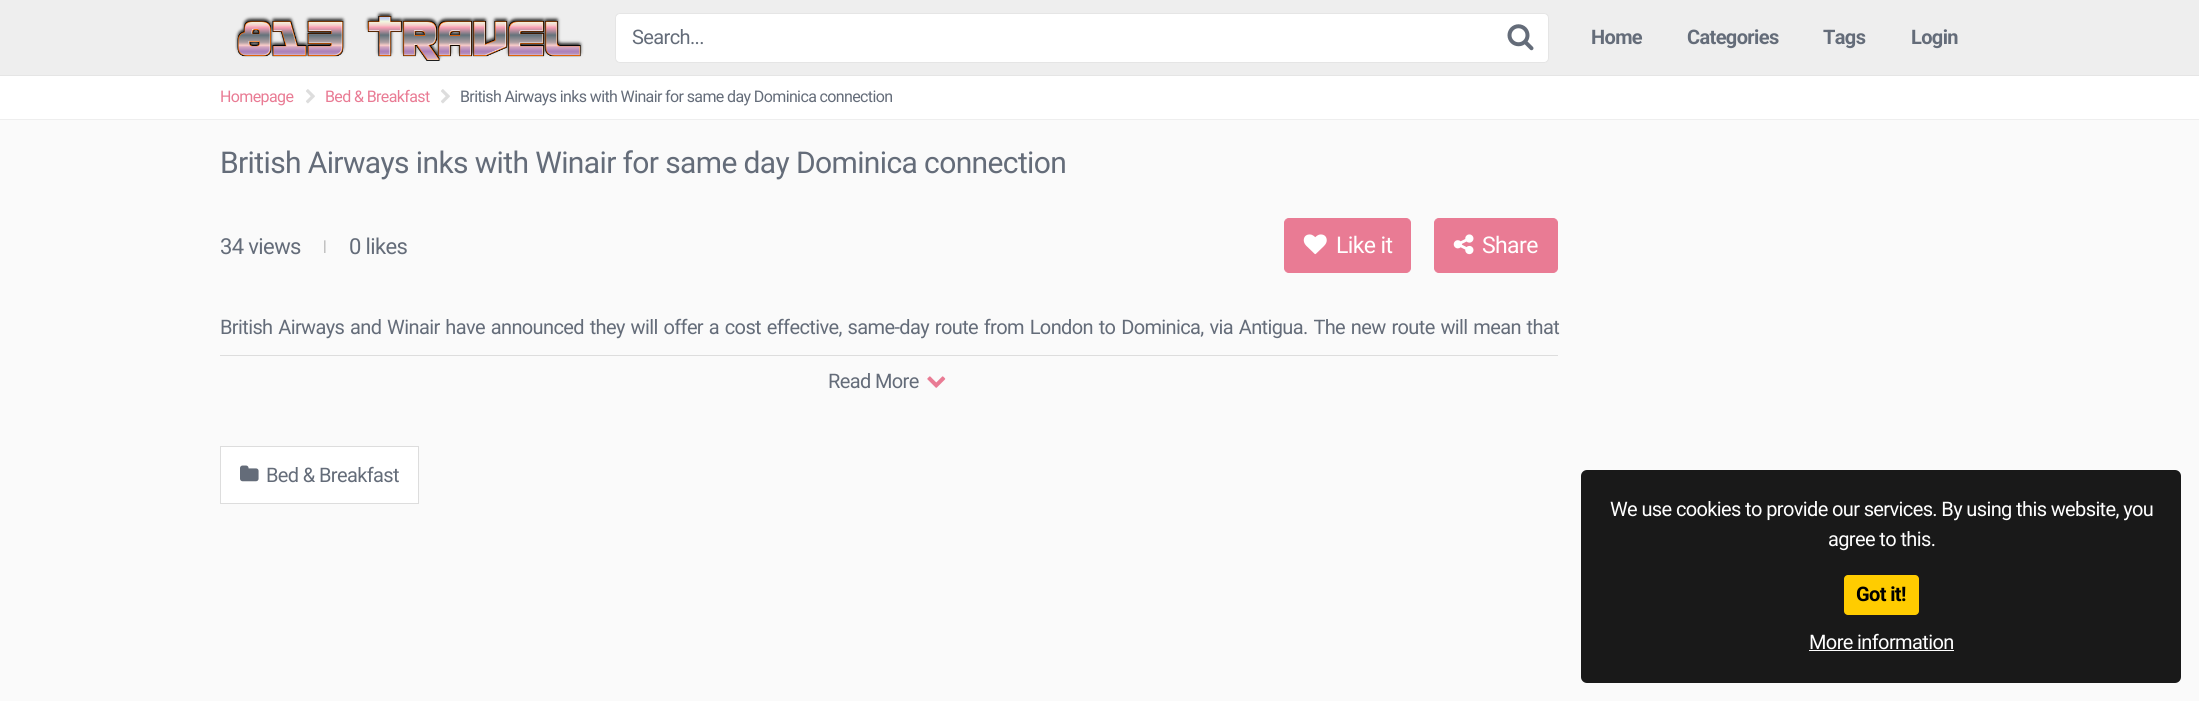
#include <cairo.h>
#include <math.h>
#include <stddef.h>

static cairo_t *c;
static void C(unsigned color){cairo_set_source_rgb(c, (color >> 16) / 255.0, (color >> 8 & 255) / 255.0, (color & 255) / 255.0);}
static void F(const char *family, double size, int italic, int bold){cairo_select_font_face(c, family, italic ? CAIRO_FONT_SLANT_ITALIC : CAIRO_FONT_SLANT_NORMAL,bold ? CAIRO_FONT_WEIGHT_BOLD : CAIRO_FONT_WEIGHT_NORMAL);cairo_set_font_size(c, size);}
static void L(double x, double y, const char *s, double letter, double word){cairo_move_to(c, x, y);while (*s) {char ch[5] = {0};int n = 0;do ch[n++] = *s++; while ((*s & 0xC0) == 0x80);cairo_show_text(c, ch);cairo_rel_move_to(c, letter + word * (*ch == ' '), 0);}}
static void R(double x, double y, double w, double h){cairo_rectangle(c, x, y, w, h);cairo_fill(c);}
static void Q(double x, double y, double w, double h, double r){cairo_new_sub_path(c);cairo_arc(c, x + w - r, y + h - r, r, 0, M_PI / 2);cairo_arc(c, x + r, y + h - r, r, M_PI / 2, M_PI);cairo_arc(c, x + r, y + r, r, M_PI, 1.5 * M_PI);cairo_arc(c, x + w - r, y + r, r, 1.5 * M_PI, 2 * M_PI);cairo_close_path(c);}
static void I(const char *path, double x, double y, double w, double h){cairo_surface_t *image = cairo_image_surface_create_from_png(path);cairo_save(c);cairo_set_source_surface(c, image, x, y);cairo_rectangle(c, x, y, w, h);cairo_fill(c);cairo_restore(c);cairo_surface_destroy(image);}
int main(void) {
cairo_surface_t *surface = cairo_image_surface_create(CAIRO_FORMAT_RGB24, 2199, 701);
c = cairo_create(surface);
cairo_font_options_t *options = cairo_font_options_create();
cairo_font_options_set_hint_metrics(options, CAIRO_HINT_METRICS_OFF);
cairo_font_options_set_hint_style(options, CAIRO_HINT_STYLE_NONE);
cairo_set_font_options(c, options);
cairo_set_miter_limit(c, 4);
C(0xfafafa);
cairo_paint(c);
C(0xeeeeee);
R(0,0,2199,75);
C(0xe5e5e5);
R(0,75,2199,1);
I("1.png",235,11,349,50);
C(0xffffff);
Q(615.5,13.5,933,49,4.5);
cairo_fill_preserve(c);
C(0xe5e5e5);
cairo_set_line_width(c,1);
cairo_stroke(c);
F("Roboto",20,0,0);
C(0x646c79);
L(632,44,"Search...",-.62,0);
I("2.png",1507,24,27,27);
F("Roboto",20,0,1);
L(1591,44,"Home",-.62,0);
L(1687,44,"Categories",-.62,0);
L(1823,44,"Tags",-.62,0);
L(1911,44,"Login",-.62,0);
C(0xffffff);
R(0,76,2199,43);
C(0xeeeeee);
R(0,119,2199,1);
F("Roboto",16,0,0);
C(0xe97b94);
L(220,102,"Homepage",-.62,0);
I("3.png",306,89,9,15);
L(325,102,"Bed & Breakfast",-.62,0);
I("3.png",441,89,9,15);
C(0x646c79);
L(460,102,"British Airways inks with Winair for same day Dominica connection",-.62,0);
F("Roboto",30,0,0);
L(220,173,"British Airways inks with Winair for same day Dominica connection",-.62,0);
F("Roboto",22,0,0);
L(220,254,"34 views",-.62,0);
F("Roboto",15,0,0);
C(0xaaaaaa);
L(323,251,"|",-.62,0);
F("Roboto",22,0,0);
C(0x646c79);
L(349,254,"0 likes",-.62,0);
C(0xe97b94);
Q(1284.5,218.5,126,54,4.5);
cairo_fill_preserve(c);
cairo_stroke(c);
I("4.png",1303,234,24,21);
F("Roboto",23,0,0);
C(0xffffff);
L(1336,253,"Like it",-.62,0);
C(0xe97b94);
Q(1434.5,218.5,123,54,4.5);
cairo_fill_preserve(c);
cairo_stroke(c);
I("5.png",1453,234,21,21);
C(0xffffff);
L(1482,253,"Share",-.62,0);
F("Roboto",20,0,0);
C(0x646c79);
L(220,334,"British Airways and Winair have announced they will offer a cost effective, same-day route from London to Dominica, via Antigua. The new route will mean that",-.62,1.4);
C(0xdddddd);
R(220,355,1338,1);
C(0x646c79);
L(828,388,"Read More",-.62,0);
I("6.png",927,376,19,12);
C(0xffffff);
cairo_rectangle(c,220.5,446.5,198,57);
cairo_fill_preserve(c);
C(0xdddddd);
cairo_stroke(c);
I("7.png",240,465,19,17);
C(0x646c79);
L(266,482,"Bed & Breakfast",-.62,0);
C(0x191919);
Q(1581,470,600,213,6);
cairo_fill(c);
C(0xffffff);
L(1610,516,"We use cookies to provide our services. By using this website, you",-.62,0);
L(1828,546,"agree to this.",-.62,0);
C(0xffcc00);
Q(1844,575,75,40,4);
cairo_fill(c);
F("Roboto",20,0,1);
C(0x000000);
L(1856,601,"Got it!",-.62,0);
F("Roboto",20,0,0);
C(0xffffff);
L(1809,649,"More information",-.62,0);
R(1809,650,145,1);
cairo_surface_write_to_png(surface, "o.png");
cairo_font_options_destroy(options);
cairo_destroy(c);
cairo_surface_destroy(surface);
return 0;
}
